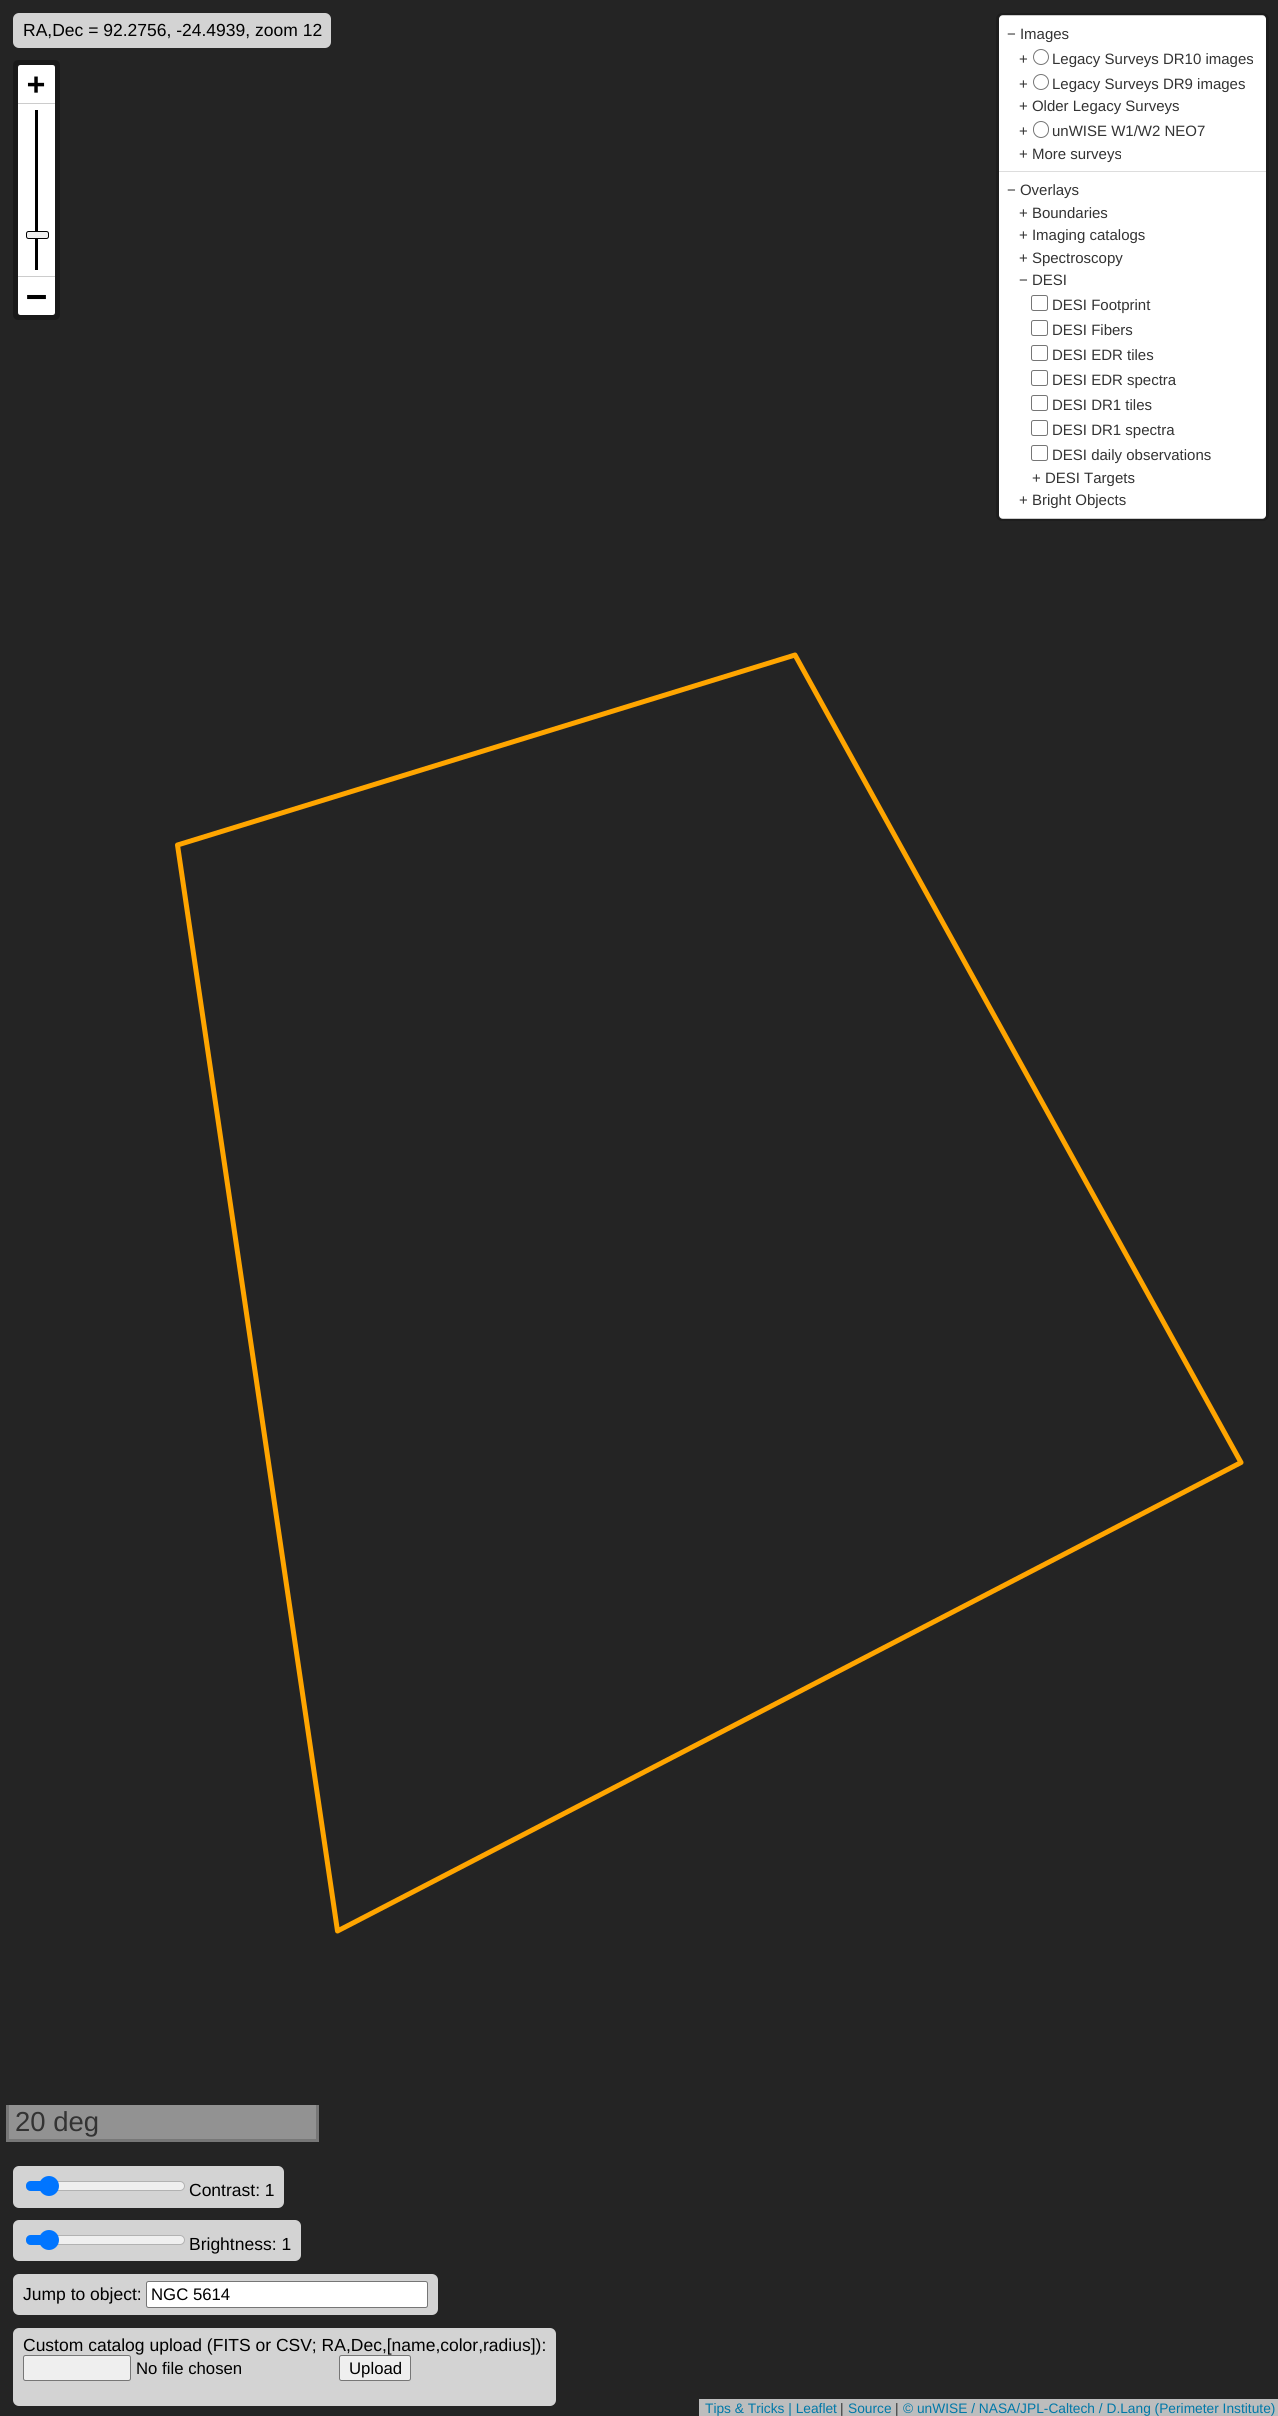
#include <cairo.h>
#include <math.h>
#include <stddef.h>

static cairo_t *c;
static void C(unsigned color){cairo_set_source_rgb(c, (color >> 16) / 255.0, (color >> 8 & 255) / 255.0, (color & 255) / 255.0);}
static void F(const char *family, double size, int italic, int bold){cairo_select_font_face(c, family, italic ? CAIRO_FONT_SLANT_ITALIC : CAIRO_FONT_SLANT_NORMAL,bold ? CAIRO_FONT_WEIGHT_BOLD : CAIRO_FONT_WEIGHT_NORMAL);cairo_set_font_size(c, size);}
static void T(double x, double y, const char *s){cairo_move_to(c, x, y);cairo_show_text(c, s);}
static void R(double x, double y, double w, double h){cairo_rectangle(c, x, y, w, h);cairo_fill(c);}
static void Q(double x, double y, double w, double h, double r){cairo_new_sub_path(c);cairo_arc(c, x + w - r, y + h - r, r, 0, M_PI / 2);cairo_arc(c, x + r, y + h - r, r, M_PI / 2, M_PI);cairo_arc(c, x + r, y + r, r, M_PI, 1.5 * M_PI);cairo_arc(c, x + w - r, y + r, r, 1.5 * M_PI, 2 * M_PI);cairo_close_path(c);}
int main(void) {
cairo_surface_t *surface = cairo_image_surface_create(CAIRO_FORMAT_RGB24, 1278, 2416);
c = cairo_create(surface);
cairo_font_options_t *options = cairo_font_options_create();
cairo_font_options_set_hint_metrics(options, CAIRO_HINT_METRICS_OFF);
cairo_font_options_set_hint_style(options, CAIRO_HINT_STYLE_NONE);
cairo_set_font_options(c, options);
cairo_set_miter_limit(c, 4);
C(0x242424);
cairo_paint(c);
C(0xd3d3d3);
Q(13,13,318,35,6);
cairo_fill(c);
F("Liberation Sans",17.5,0,0);
C(0x000000);
T(23,36,"RA,Dec = 92.2756, -24.4939, zoom 12");
Q(15.5,62.5,42,255,2.5);
C(0x191919);
cairo_set_line_width(c,5);
cairo_stroke(c);
C(0xffffff);
cairo_new_path(c);
cairo_move_to(c,20.5,65);
cairo_line_to(c,52.5,65);
cairo_curve_to(c,54,65,55,66,55,67.5);
cairo_line_to(c,55,104);
cairo_line_to(c,18,104);
cairo_line_to(c,18,67.5);
cairo_curve_to(c,18,66,19,65,20.5,65);
cairo_close_path(c);
cairo_fill(c);
C(0xcccccc);
R(18,103,37,1);
F("DejaVu Sans Mono",30,0,1);
C(0x000000);
T(27,94,"+");
C(0xffffff);
R(18,104,37,174);
C(0xcccccc);
R(18,276,37,1);
C(0x000000);
R(35,110,3,160);
C(0xefefef);
Q(26.5,231.5,22,7,2);
cairo_fill_preserve(c);
C(0x000000);
cairo_set_line_width(c,1);
cairo_stroke(c);
C(0xffffff);
cairo_new_path(c);
cairo_move_to(c,18,278);
cairo_line_to(c,55,278);
cairo_line_to(c,55,312.5);
cairo_curve_to(c,55,314,54,315,52.5,315);
cairo_line_to(c,20.5,315);
cairo_curve_to(c,19,315,18,314,18,312.5);
cairo_close_path(c);
cairo_fill(c);
F("DejaVu Sans Mono",35,0,1);
C(0x000000);
T(26,308,"−");
C(0xffffff);
Q(999,15,267,504,4);
cairo_fill(c);
Q(997.5,14.5,270,505,4.5);
cairo_set_source_rgba(c,0,0,0,0.2);
cairo_set_line_width(c,3);
cairo_stroke(c);
F("Liberation Sans",15,0,0);
C(0x333333);
T(1007,39,"− Images");
T(1019,64,"+");
cairo_new_path(c);
cairo_arc(c,1041,57,7.5,0,2 * M_PI);
C(0x767676);
cairo_set_line_width(c,1);
cairo_stroke(c);
C(0x333333);
T(1052,64,"Legacy Surveys DR10 images");
T(1019,89,"+");
cairo_new_path(c);
cairo_arc(c,1041,82,7.5,0,2 * M_PI);
C(0x767676);
cairo_stroke(c);
C(0x333333);
T(1052,89,"Legacy Surveys DR9 images");
T(1019,111,"+ Older Legacy Surveys");
T(1019,136,"+");
Q(1033.5,121.5,15,16,7.5);
C(0x767676);
cairo_stroke(c);
C(0x333333);
T(1052,136,"unWISE W1/W2 NEO7");
T(1019,159,"+ More surveys");
C(0xdddddd);
R(999,171,267,1);
C(0x333333);
T(1007,195,"− Overlays");
T(1019,218,"+ Boundaries");
T(1019,240,"+ Imaging catalogs");
T(1019,263,"+ Spectroscopy");
T(1019,285,"− DESI");
Q(1031.5,295.5,16,15,2);
C(0x767676);
cairo_stroke(c);
C(0x333333);
T(1052,310,"DESI Footprint");
Q(1031.5,320.5,16,15,2);
C(0x767676);
cairo_stroke(c);
C(0x333333);
T(1052,335,"DESI Fibers");
Q(1031.5,345.5,16,15,2);
C(0x767676);
cairo_stroke(c);
C(0x333333);
T(1052,360,"DESI EDR tiles");
Q(1031.5,370.5,16,15,2);
C(0x767676);
cairo_stroke(c);
C(0x333333);
T(1052,385,"DESI EDR spectra");
Q(1031.5,395.5,16,15,2);
C(0x767676);
cairo_stroke(c);
C(0x333333);
T(1052,410,"DESI DR1 tiles");
Q(1031.5,420.5,16,15,2);
C(0x767676);
cairo_stroke(c);
C(0x333333);
T(1052,435,"DESI DR1 spectra");
Q(1031.5,445.5,16,15,2);
C(0x767676);
cairo_stroke(c);
C(0x333333);
T(1052,460,"DESI daily observations");
T(1032,483,"+ DESI Targets");
T(1019,505,"+ Bright Objects");
C(0x929292);
R(9,2105,307,34);
C(0x777777);
R(316,2105,3,36);
R(6,2139,313,3);
R(6,2105,3,36);
F("Liberation Sans",27.5,0,0);
C(0x333333);
T(15,2131,"20 deg");
C(0xd3d3d3);
Q(13,2166,271,42,6);
cairo_fill(c);
C(0xefefef);
Q(26.5,2181.5,158,9,4.5);
cairo_fill_preserve(c);
C(0xb2b2b2);
cairo_stroke(c);
C(0x0075ff);
cairo_new_path(c);
cairo_move_to(c,31,2181);
cairo_line_to(c,49,2181);
cairo_line_to(c,49,2191);
cairo_line_to(c,31,2191);
cairo_curve_to(c,28,2191,26,2189,26,2186);
cairo_curve_to(c,26,2183,28,2181,31,2181);
cairo_close_path(c);
cairo_fill(c);
cairo_arc(c,49,2186,10,0,2 * M_PI);
cairo_fill(c);
F("Liberation Sans",17.5,0,0);
C(0x000000);
T(189,2196,"Contrast: 1");
C(0xd3d3d3);
Q(13,2220,288,41,6);
cairo_fill(c);
C(0xefefef);
Q(26.5,2235.5,158,9,4.5);
cairo_fill_preserve(c);
C(0xb2b2b2);
cairo_stroke(c);
C(0x0075ff);
cairo_new_path(c);
cairo_move_to(c,31,2235);
cairo_line_to(c,49,2235);
cairo_line_to(c,49,2245);
cairo_line_to(c,31,2245);
cairo_curve_to(c,28,2245,26,2243,26,2240);
cairo_curve_to(c,26,2237,28,2235,31,2235);
cairo_close_path(c);
cairo_fill(c);
cairo_arc(c,49,2240,10,0,2 * M_PI);
cairo_fill(c);
C(0x000000);
T(189,2250,"Brightness: 1");
C(0xd3d3d3);
Q(13,2274,425,41,6);
cairo_fill(c);
C(0x000000);
T(23,2300,"Jump to object:");
C(0xffffff);
Q(146.5,2281.5,281,26,2);
cairo_fill_preserve(c);
C(0x767676);
cairo_stroke(c);
F("Liberation Sans",16.75,0,0);
C(0x000000);
T(151,2300,"NGC 5614");
C(0xd3d3d3);
Q(13,2328,543,78,6);
cairo_fill(c);
F("Liberation Sans",17.5,0,0);
C(0x000000);
T(23,2351,"Custom catalog upload (FITS or CSV; RA,Dec,[name,color,radius]):");
C(0xefefef);
Q(23.5,2355.5,107,25,2);
cairo_fill_preserve(c);
C(0x767676);
cairo_stroke(c);
F("Liberation Sans",16.75,0,0);
C(0x000000);
T(136,2374,"No file chosen");
C(0xefefef);
Q(339.5,2355.5,71,25,2);
cairo_fill_preserve(c);
C(0x767676);
cairo_stroke(c);
C(0x000000);
T(349,2374,"Upload");
C(0xbdbdbd);
R(699,2399,579,17);
F("Liberation Sans",13.75,0,0);
C(0x0078a8);
T(705,2413,"Tips & Tricks | Leaflet");
C(0x333333);
T(840,2413,"|");
C(0x0078a8);
T(848,2413,"Source");
C(0x333333);
T(895,2413,"|");
C(0x0078a8);
T(903,2413,"© unWISE / NASA/JPL-Caltech / D.Lang (Perimeter Institute)");
cairo_new_path(c);
cairo_move_to(c,177.5,845);
cairo_line_to(c,795,655);
cairo_line_to(c,1241,1462.5);
cairo_line_to(c,337.5,1931);
cairo_close_path(c);
C(0xffa500);
cairo_set_line_width(c,5);
cairo_set_line_cap(c,CAIRO_LINE_CAP_ROUND);
cairo_set_line_join(c,CAIRO_LINE_JOIN_ROUND);
cairo_stroke(c);
cairo_surface_write_to_png(surface, "o.png");
cairo_font_options_destroy(options);
cairo_destroy(c);
cairo_surface_destroy(surface);
return 0;
}
